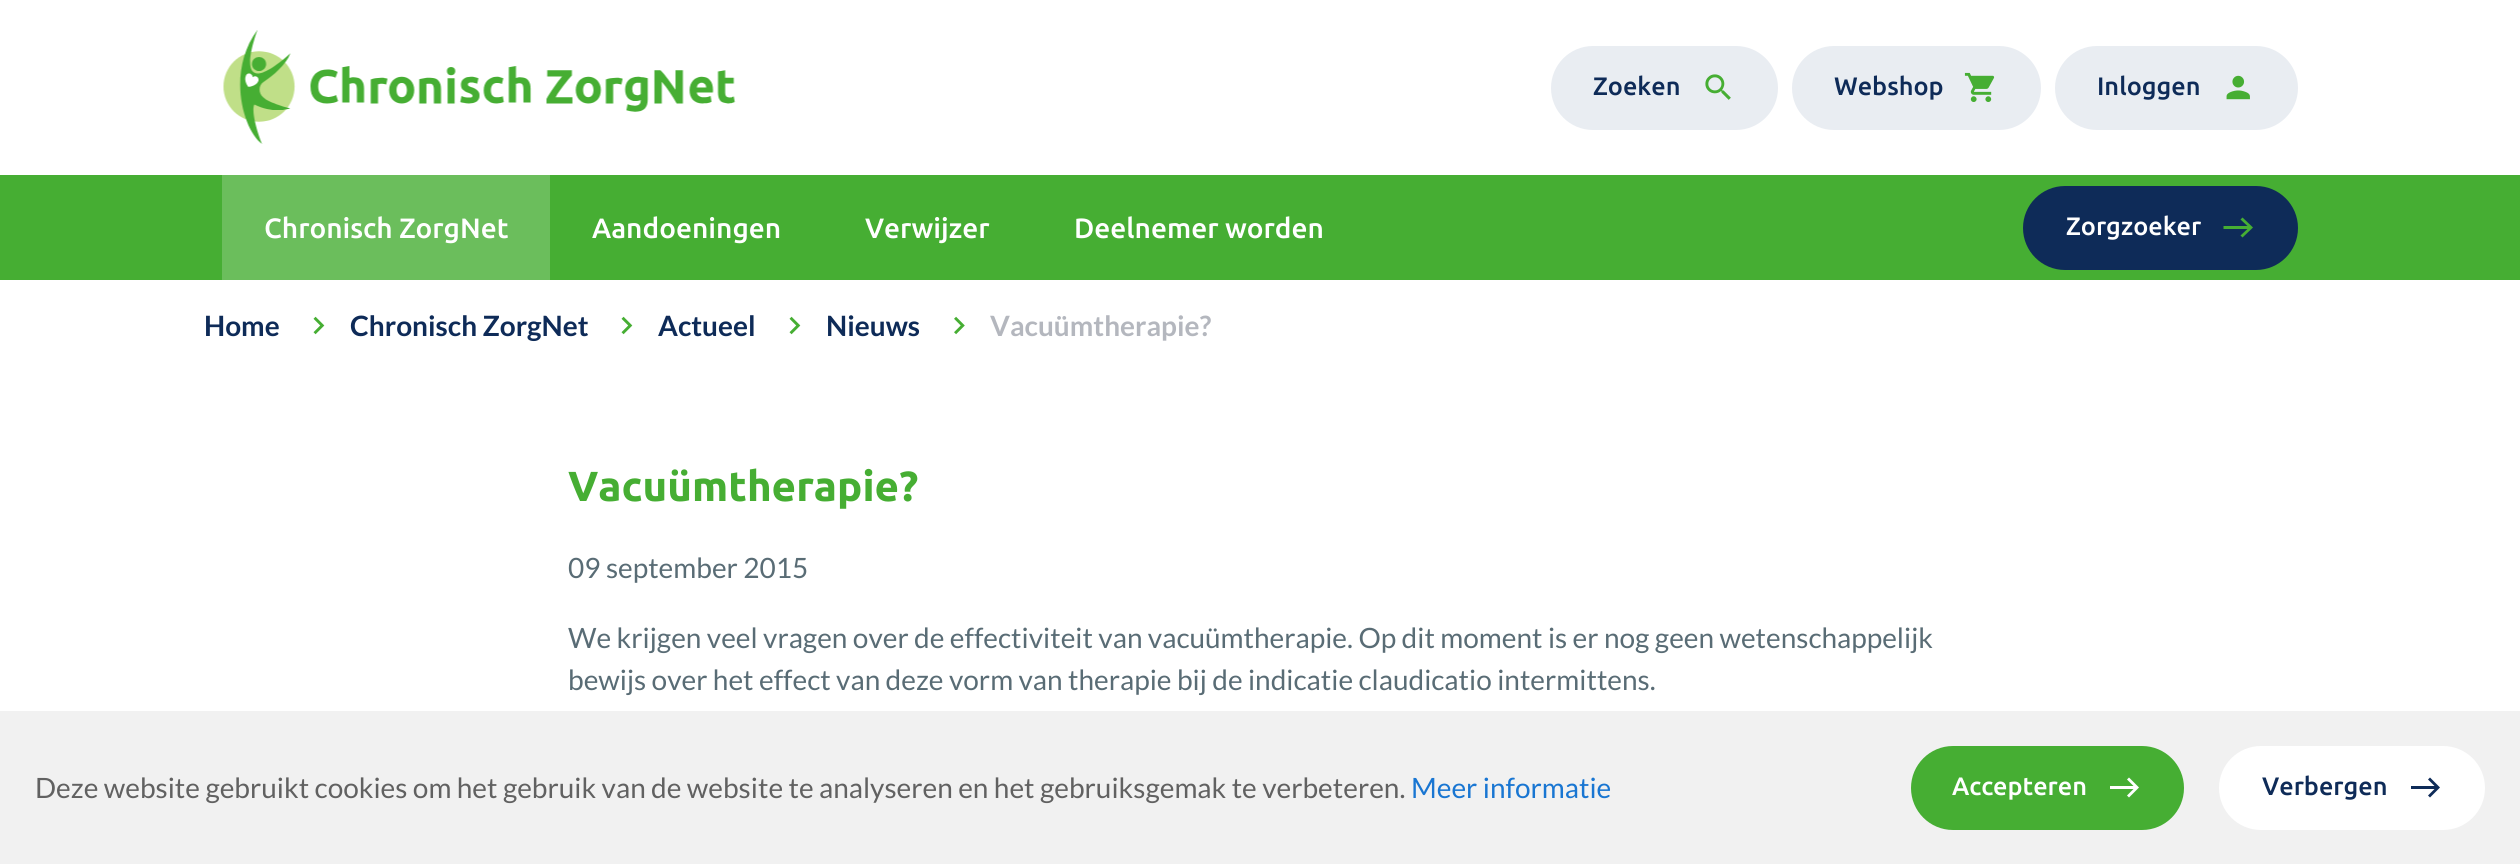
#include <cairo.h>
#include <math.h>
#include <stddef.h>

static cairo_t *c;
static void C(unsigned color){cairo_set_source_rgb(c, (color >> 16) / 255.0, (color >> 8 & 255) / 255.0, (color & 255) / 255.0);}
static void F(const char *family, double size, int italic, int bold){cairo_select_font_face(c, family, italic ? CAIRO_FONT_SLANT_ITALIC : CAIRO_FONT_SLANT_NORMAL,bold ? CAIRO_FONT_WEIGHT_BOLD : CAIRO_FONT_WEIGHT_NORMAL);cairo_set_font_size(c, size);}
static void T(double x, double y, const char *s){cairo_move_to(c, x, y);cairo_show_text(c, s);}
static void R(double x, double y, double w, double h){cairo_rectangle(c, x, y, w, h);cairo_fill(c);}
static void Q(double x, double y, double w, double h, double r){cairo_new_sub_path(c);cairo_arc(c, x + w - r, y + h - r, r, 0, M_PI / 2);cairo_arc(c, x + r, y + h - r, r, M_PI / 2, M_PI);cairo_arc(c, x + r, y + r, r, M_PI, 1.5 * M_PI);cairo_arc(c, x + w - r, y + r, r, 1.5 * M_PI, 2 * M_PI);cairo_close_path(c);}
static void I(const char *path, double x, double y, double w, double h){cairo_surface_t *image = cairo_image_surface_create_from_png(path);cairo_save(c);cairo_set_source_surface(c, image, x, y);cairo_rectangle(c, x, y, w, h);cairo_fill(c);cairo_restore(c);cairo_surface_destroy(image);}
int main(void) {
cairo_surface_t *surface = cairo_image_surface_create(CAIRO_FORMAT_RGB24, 2520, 864);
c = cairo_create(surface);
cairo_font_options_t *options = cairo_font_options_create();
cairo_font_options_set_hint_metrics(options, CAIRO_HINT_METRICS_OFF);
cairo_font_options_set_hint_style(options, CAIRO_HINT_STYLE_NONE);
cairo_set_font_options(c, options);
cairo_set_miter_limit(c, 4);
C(0xffffff);
cairo_paint(c);
I("1.png",223,30,513,114);
C(0xe9edf2);
Q(1551,46,227,84,42);
cairo_fill(c);
F("Ubuntu Medium",25.25,0,0);
C(0x0e2b58);
T(1593,95,"Zoeken");
I("2.png",1705,74,26,26);
C(0xe9edf2);
Q(1792,46,249,84,42);
cairo_fill(c);
C(0x0e2b58);
T(1834,95,"Webshop");
I("3.png",1964,72,31,30);
C(0xe9edf2);
Q(2055,46,243,84,42);
cairo_fill(c);
C(0x0e2b58);
T(2097,95,"Inloggen");
I("4.png",2226,75,24,25);
C(0x46ae33);
R(0,175,2520,105);
C(0x6bbe5c);
R(222,175,328,105);
F("Ubuntu Medium",28,0,0);
C(0xffffff);
T(264,238,"Chronisch ZorgNet");
T(592,238,"Aandoeningen");
T(865,238,"Verwijzer");
T(1074,238,"Deelnemer worden");
C(0x0e2b58);
Q(2023,186,275,84,42);
cairo_fill(c);
F("Ubuntu Medium",25.25,0,0);
C(0xffffff);
T(2066,235,"Zorgzoeker");
C(0x46ae33);
cairo_new_path(c);
cairo_move_to(c,2242.5,217.5);
cairo_line_to(c,2240.5,219.5);
cairo_line_to(c,2247.5,226);
cairo_line_to(c,2223.5,226);
cairo_line_to(c,2223.5,229);
cairo_line_to(c,2247.5,229);
cairo_line_to(c,2240.5,235.5);
cairo_line_to(c,2242.5,237.5);
cairo_line_to(c,2253,227.5);
cairo_close_path(c);
cairo_fill(c);
F("Lato",28,0,1);
C(0x0e2b58);
T(204,336,"Home");
I("5.png",313,316,12,19);
T(350,336,"Chronisch ZorgNet");
I("5.png",621,316,12,19);
T(658,336,"Actueel");
I("5.png",789,316,12,19);
T(826,336,"Nieuws");
I("6.png",954,316,11,19);
C(0xb4b7be);
T(990,336,"Vacuümtherapie?");
F("Ubuntu",42,0,1);
C(0x46ae33);
T(568,501,"Vacuümtherapie?");
F("Lato",28,0,0);
C(0x596c75);
T(568,578,"09 september 2015");
T(568,648,"We krijgen veel vragen over de effectiviteit van vacuümtherapie. Op dit moment is er nog geen wetenschappelijk");
T(568,690,"bewijs over het effect van deze vorm van therapie bij de indicatie claudicatio intermittens.");
C(0xf1f1f1);
R(0,711,2520,153);
C(0x616161);
T(35,798,"Deze website gebruikt cookies om het gebruik van de website te analyseren en het gebruiksgemak te verbeteren.");
C(0x1976d2);
T(1411,798,"Meer informatie");
C(0x46ae33);
Q(1911,746,273,84,42);
cairo_fill(c);
F("Ubuntu Medium",25.25,0,0);
C(0xffffff);
T(1952,795,"Accepteren");
cairo_new_path(c);
cairo_move_to(c,2129,777.5);
cairo_line_to(c,2127,779.5);
cairo_line_to(c,2133.5,786);
cairo_line_to(c,2110,786);
cairo_line_to(c,2110,789);
cairo_line_to(c,2133.5,789);
cairo_line_to(c,2127,795.5);
cairo_line_to(c,2129,797.5);
cairo_line_to(c,2139,787.5);
cairo_close_path(c);
cairo_fill(c);
Q(2219,746,266,84,42);
cairo_fill(c);
C(0x0e2b58);
T(2262,795,"Verbergen");
cairo_new_path(c);
cairo_move_to(c,2430,777.5);
cairo_line_to(c,2428,779.5);
cairo_line_to(c,2434.5,786);
cairo_line_to(c,2411,786);
cairo_line_to(c,2411,789);
cairo_line_to(c,2434.5,789);
cairo_line_to(c,2428,795.5);
cairo_line_to(c,2430,797.5);
cairo_line_to(c,2440,787.5);
cairo_close_path(c);
cairo_fill(c);
cairo_surface_write_to_png(surface, "o.png");
cairo_font_options_destroy(options);
cairo_destroy(c);
cairo_surface_destroy(surface);
return 0;
}
